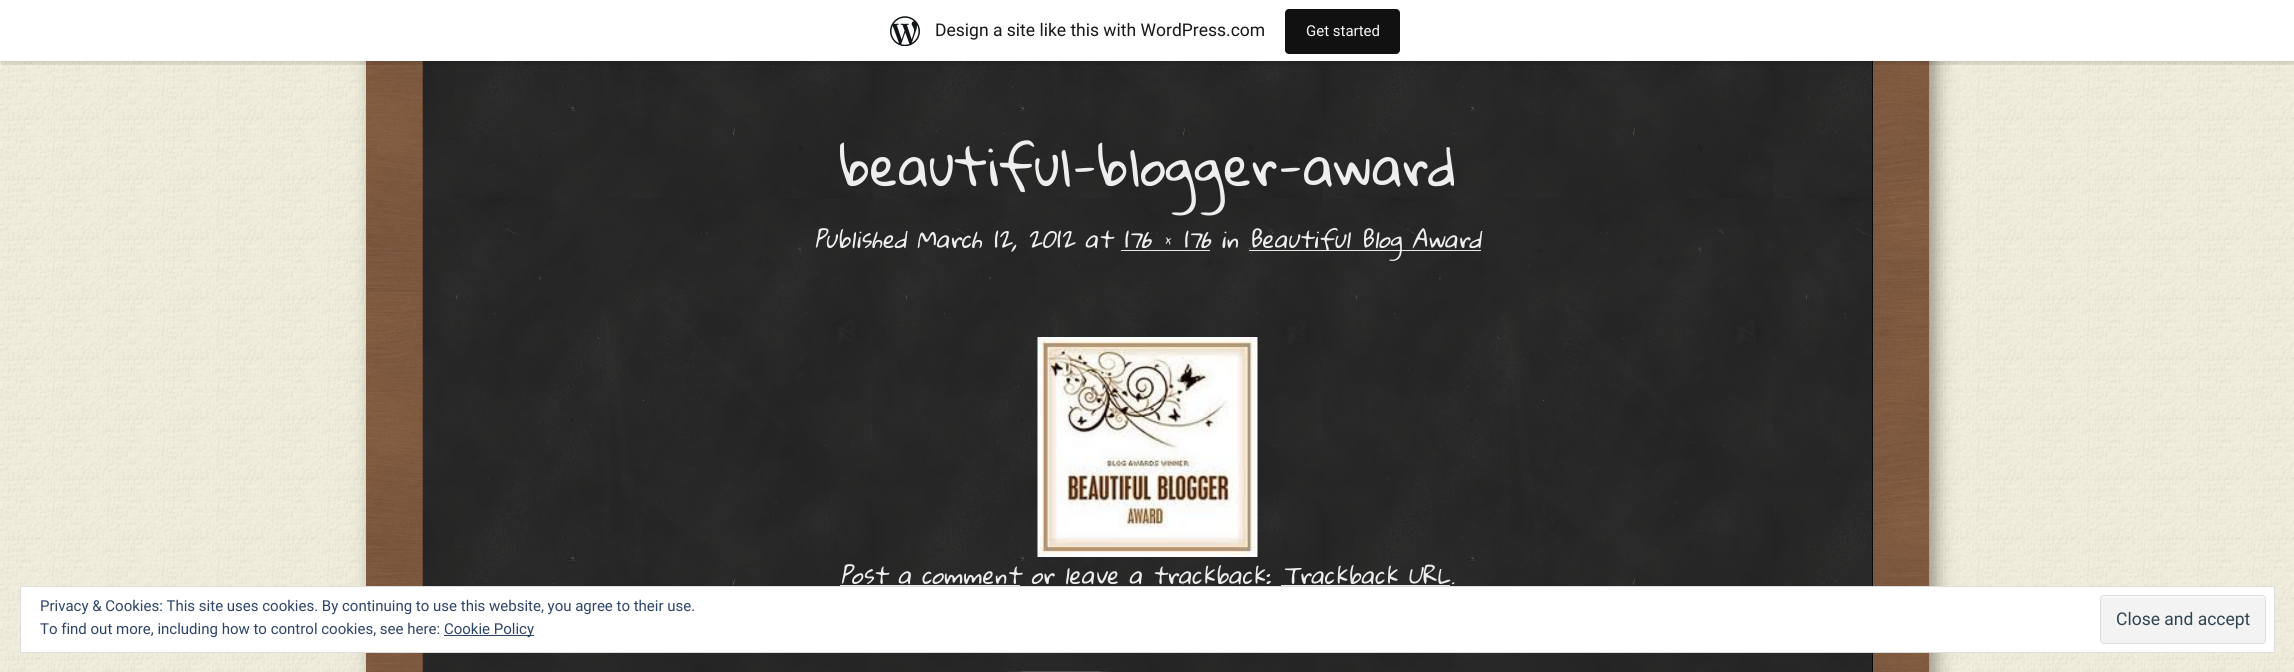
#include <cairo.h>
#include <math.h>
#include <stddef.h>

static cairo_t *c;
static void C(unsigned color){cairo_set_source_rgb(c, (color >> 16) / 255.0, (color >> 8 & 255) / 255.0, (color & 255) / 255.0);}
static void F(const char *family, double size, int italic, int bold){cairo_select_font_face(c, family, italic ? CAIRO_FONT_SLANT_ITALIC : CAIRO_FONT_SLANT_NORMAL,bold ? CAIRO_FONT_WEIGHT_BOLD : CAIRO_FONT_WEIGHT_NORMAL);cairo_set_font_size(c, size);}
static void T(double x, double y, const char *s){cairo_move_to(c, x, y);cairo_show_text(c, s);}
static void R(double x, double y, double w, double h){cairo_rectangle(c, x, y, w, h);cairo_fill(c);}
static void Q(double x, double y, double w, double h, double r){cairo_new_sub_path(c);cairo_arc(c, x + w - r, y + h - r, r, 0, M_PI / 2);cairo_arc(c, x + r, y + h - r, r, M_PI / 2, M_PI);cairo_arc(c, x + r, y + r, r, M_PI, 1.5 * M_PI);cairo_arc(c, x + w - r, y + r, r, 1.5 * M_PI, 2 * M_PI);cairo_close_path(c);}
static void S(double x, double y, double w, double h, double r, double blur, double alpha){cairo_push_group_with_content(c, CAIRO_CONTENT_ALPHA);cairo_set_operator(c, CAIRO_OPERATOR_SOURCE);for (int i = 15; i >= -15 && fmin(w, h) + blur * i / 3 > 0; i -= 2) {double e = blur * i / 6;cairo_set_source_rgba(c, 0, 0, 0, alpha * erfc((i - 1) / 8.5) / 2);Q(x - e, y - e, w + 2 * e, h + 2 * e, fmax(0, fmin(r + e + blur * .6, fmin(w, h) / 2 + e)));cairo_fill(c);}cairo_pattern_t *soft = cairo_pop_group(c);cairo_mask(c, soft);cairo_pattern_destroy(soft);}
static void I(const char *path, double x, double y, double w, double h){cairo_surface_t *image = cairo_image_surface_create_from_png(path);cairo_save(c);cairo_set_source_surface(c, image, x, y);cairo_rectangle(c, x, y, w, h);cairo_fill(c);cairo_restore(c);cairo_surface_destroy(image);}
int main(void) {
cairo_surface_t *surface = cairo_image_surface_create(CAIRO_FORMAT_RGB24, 2294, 672);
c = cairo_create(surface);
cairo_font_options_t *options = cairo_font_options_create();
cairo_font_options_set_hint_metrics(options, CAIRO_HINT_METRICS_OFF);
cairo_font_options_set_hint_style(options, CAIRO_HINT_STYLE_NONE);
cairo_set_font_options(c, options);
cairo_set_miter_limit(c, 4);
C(0xf1eedc);
cairo_paint(c);
I("1.png",0,61,2294,611);
C(0x000000);
S(373,-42,1562,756,13,9.5,.4);
C(0x855e42);
R(366,61,1563,611);
I("3.png",366,61,1563,611);
C(0x000000);
R(1872,61,1,611);
I("4.png",422,61,1451,611);
C(0x000000);
S(0,1,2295,62,0,1,.05);
cairo_set_source_rgba(c,0,0,0,0.08);
cairo_new_path(c);
cairo_move_to(c,1,61);
cairo_line_to(c,1,65);
cairo_line_to(c,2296,65);
cairo_line_to(c,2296,4);
cairo_line_to(c,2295,4);
cairo_line_to(c,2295,61);
cairo_close_path(c);
cairo_fill(c);
C(0xffffff);
R(0,0,2294,61);
I("2.png",890,16,30,30);
F("Roboto",17.5,0,0);
C(0x171717);
T(935,36,"Design a site like this with WordPress.com");
C(0x111111);
Q(1285,9,115,45,4);
cairo_fill(c);
F("Roboto",15,0,0);
C(0xf6f7f7);
T(1306,36,"Get started");
F("Gloria Hallelujah",51.25,0,0);
C(0xeeeeee);
T(839,186,"beautiful-blogger-award");
F("Gloria Hallelujah",22.5,1,0);
T(814,248,"Published March 12, 2012 at 176 × 176");
T(1220,248,"in");
cairo_set_source_rgba(c,1,1,1,0.9);
R(1249,250,232,1);
C(0xeeeeee);
T(1248,248,"Beautiful Blog Award");
cairo_set_source_rgba(c,1,1,1,0.9);
R(1121,250,89,1);
I("5.png",1037,337,221,220);
C(0xeeeeee);
T(840,584,"Post a comment or leave a trackback: Trackback URL");
cairo_set_source_rgba(c,1,1,1,0.9);
R(840,585,180,1);
C(0xeeeeee);
T(1450,584,".");
cairo_set_source_rgba(c,1,1,1,0.9);
R(1281,585,169,1);
I("6.png",1007,671,104,1);
C(0xffffff);
cairo_rectangle(c,20.5,586.5,2254,66);
cairo_fill_preserve(c);
C(0xdedede);
cairo_set_line_width(c,1);
cairo_stroke(c);
F("Roboto",15,0,0);
C(0x2e4467);
T(40,611,"Privacy & Cookies: This site uses cookies. By continuing to use this website, you agree to their use.");
T(40,634,"To find out more, including how to control cookies, see here:");
R(444,635,90,1);
T(444,634,"Cookie Policy");
C(0xf3f3f3);
Q(2100,595,166,49,4);
cairo_fill(c);
C(0xf9f9f9);
cairo_new_path(c);
cairo_move_to(c,2104,598);
cairo_line_to(c,2262,598);
cairo_curve_to(c,2264,598,2265,599,2265,600);
cairo_curve_to(c,2265,598,2265,596,2262,596);
cairo_line_to(c,2104,596);
cairo_curve_to(c,2101,596,2101,598,2101,600);
cairo_curve_to(c,2101,599,2102,598,2104,598);
cairo_close_path(c);
cairo_fill(c);
Q(2100.5,595.5,165,48,3.5);
C(0xdedede);
cairo_stroke(c);
F("Roboto",17.5,0,0);
C(0x2e4453);
T(2116,625,"Close and accept");
cairo_surface_write_to_png(surface, "o.png");
cairo_font_options_destroy(options);
cairo_destroy(c);
cairo_surface_destroy(surface);
return 0;
}
